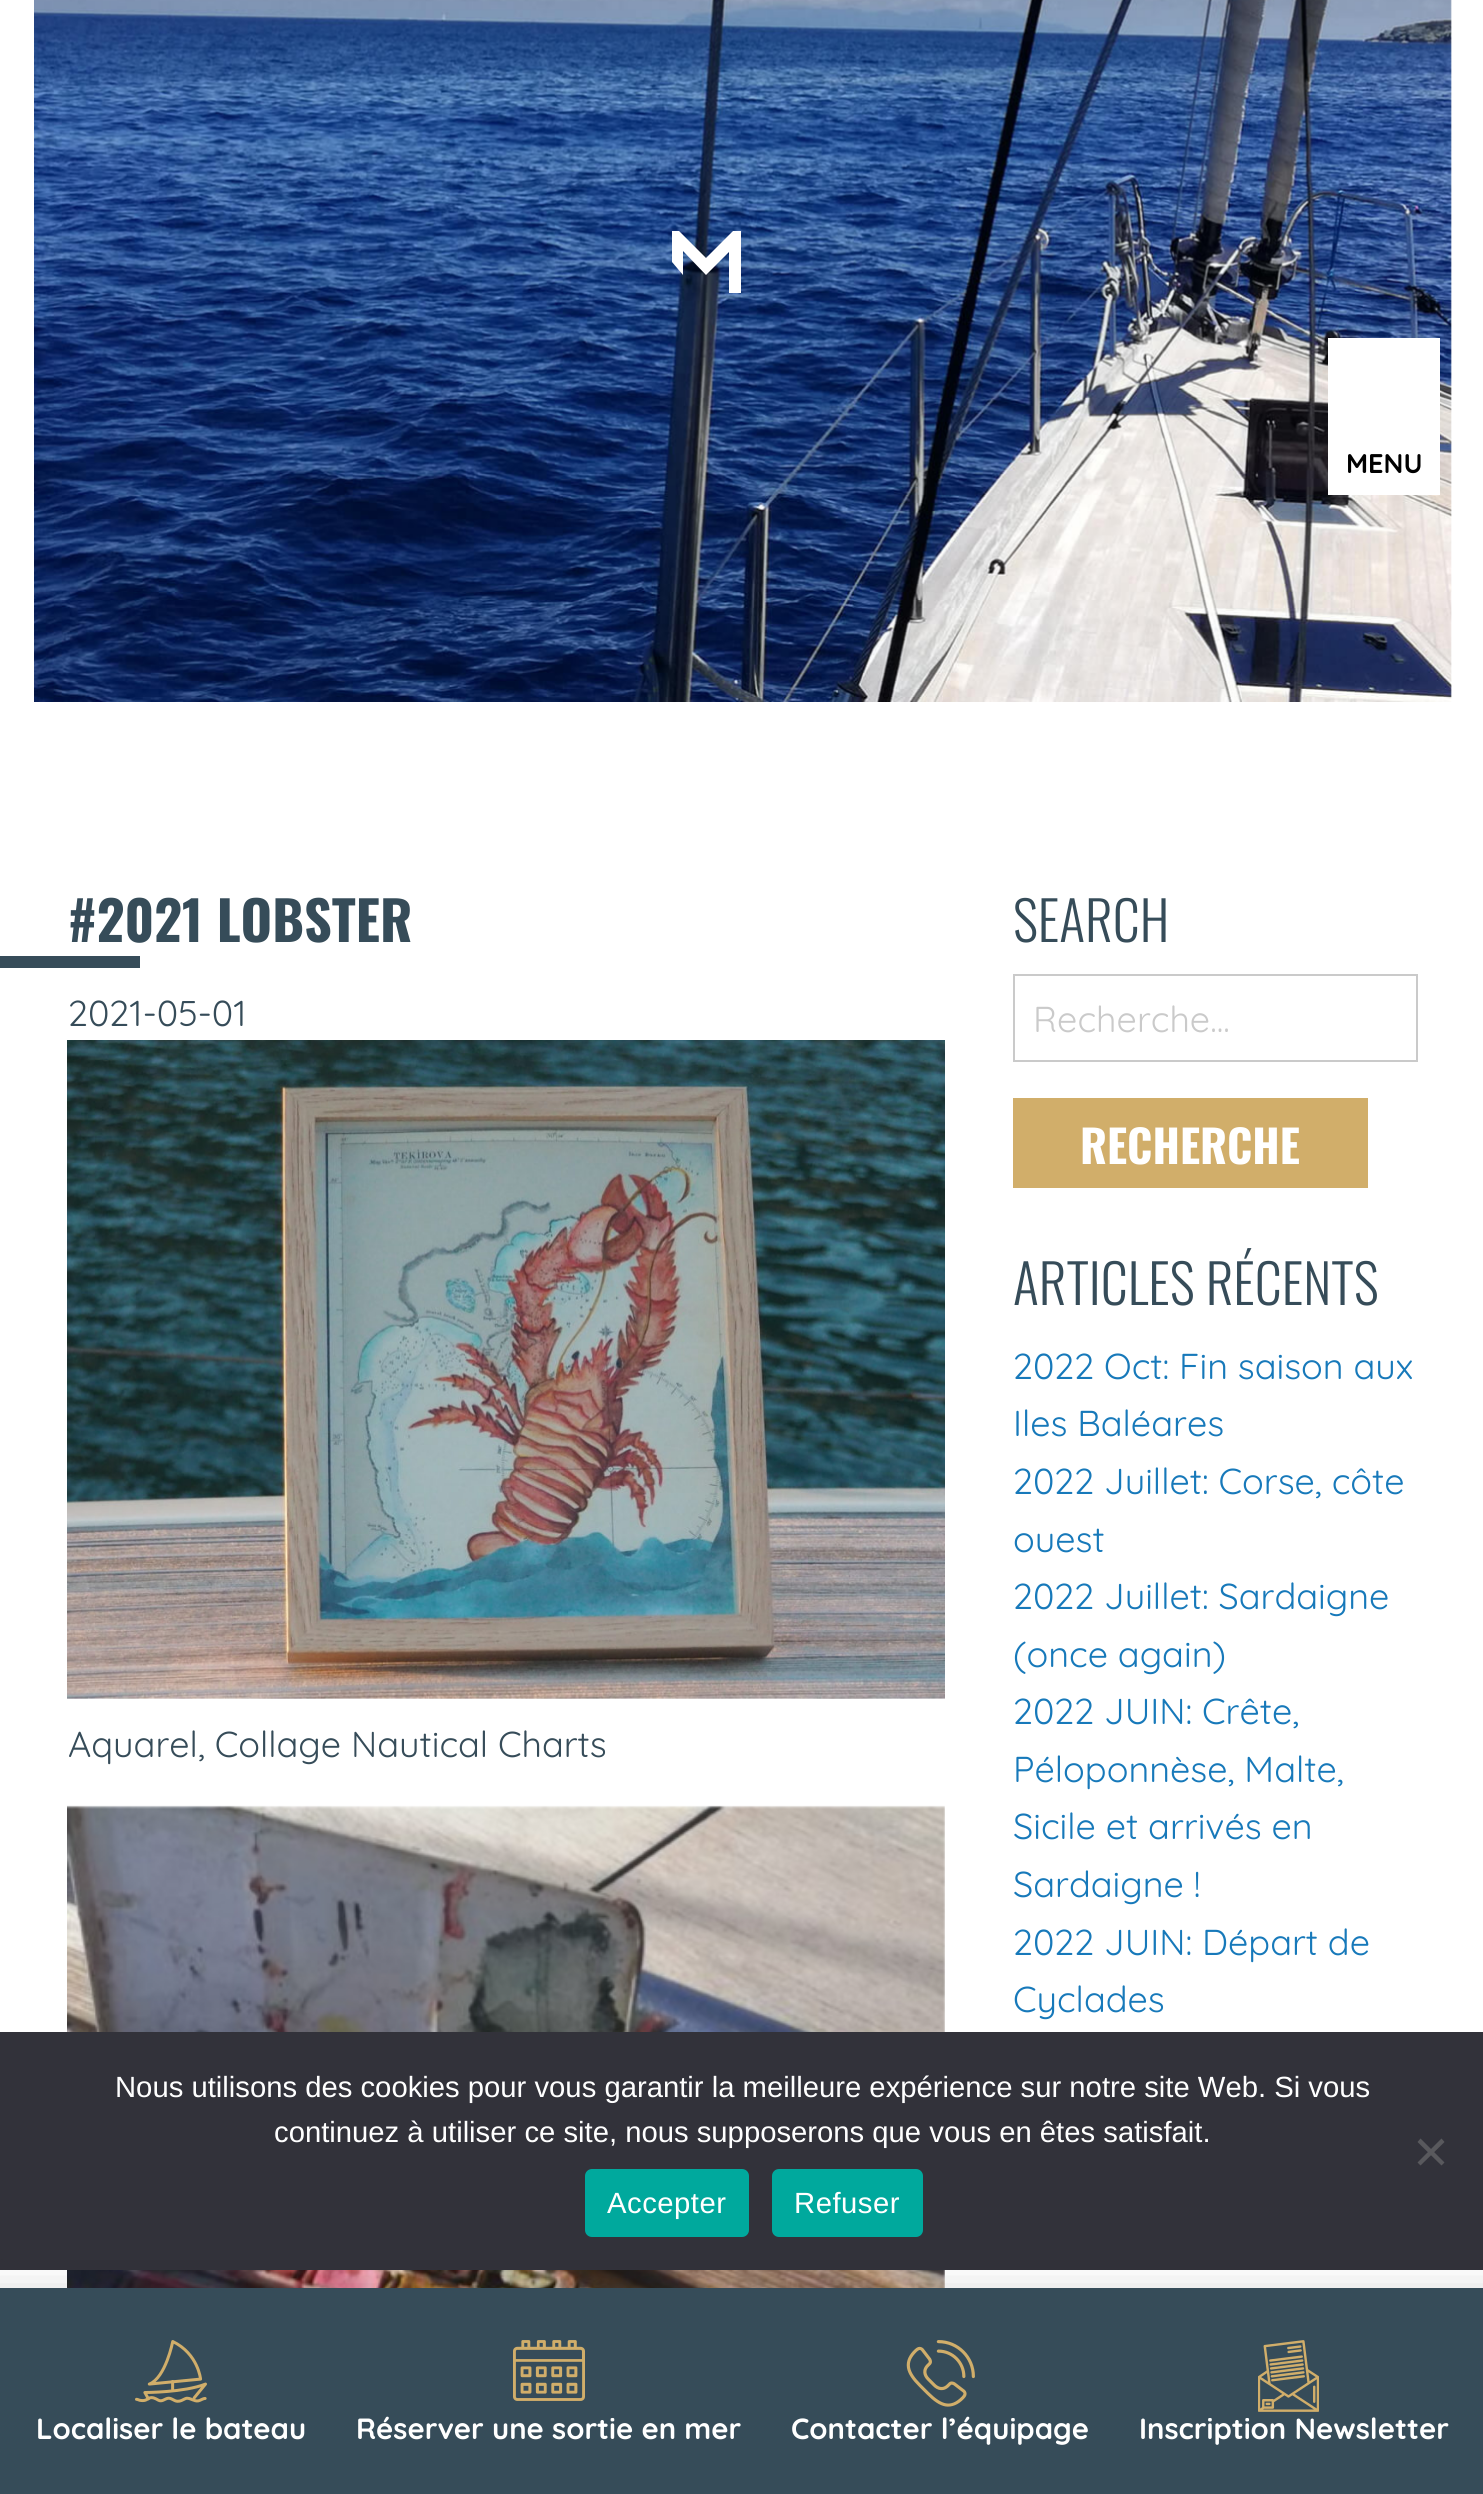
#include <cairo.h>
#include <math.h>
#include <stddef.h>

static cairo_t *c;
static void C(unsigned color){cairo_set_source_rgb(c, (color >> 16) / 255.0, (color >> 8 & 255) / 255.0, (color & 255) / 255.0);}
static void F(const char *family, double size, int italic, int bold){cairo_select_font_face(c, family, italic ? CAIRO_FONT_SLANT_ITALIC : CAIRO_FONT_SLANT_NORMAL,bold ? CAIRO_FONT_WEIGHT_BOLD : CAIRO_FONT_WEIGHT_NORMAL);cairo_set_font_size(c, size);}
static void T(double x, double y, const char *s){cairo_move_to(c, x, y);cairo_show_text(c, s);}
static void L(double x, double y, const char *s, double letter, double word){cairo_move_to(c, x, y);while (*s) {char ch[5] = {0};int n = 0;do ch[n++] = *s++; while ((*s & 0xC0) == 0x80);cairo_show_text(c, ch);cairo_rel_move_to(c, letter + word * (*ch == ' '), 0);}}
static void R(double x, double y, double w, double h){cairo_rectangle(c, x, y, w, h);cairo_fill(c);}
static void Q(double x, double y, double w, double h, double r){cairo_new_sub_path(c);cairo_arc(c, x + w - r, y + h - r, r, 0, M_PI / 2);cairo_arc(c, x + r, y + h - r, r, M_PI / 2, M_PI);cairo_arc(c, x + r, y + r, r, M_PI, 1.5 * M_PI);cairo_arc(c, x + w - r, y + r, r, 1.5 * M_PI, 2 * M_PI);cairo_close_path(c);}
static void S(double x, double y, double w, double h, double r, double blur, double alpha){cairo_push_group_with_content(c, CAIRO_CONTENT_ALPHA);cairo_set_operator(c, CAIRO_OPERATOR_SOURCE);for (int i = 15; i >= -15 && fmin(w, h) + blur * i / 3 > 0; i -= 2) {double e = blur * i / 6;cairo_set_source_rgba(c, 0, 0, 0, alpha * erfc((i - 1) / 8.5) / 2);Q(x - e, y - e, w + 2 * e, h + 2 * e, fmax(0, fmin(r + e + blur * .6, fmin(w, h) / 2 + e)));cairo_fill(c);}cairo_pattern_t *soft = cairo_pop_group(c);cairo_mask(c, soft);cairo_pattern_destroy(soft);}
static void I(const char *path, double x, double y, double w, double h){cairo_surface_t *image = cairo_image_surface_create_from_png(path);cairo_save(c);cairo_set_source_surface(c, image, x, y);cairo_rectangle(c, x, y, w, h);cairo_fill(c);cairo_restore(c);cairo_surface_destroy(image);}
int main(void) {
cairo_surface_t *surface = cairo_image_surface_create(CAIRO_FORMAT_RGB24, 1483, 2494);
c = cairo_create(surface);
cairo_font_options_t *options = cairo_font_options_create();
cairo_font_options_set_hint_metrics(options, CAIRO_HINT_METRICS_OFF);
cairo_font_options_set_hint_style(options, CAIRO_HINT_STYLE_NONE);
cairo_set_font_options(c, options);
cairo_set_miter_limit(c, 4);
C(0xffffff);
cairo_paint(c);
I("1.png",34,0,1418,702);
C(0xffffff);
R(1328,338,112,157);
F("Quicksand",27,0,1);
C(0x000000);
T(1346,473,"MENU");
C(0xffffff);
cairo_new_path(c);
cairo_move_to(c,733,231);
cairo_line_to(c,706,258);
cairo_line_to(c,679,231);
cairo_line_to(c,672,231);
cairo_line_to(c,672,262);
cairo_line_to(c,683,275);
cairo_line_to(c,683,251);
cairo_line_to(c,706,275);
cairo_line_to(c,729,252);
cairo_line_to(c,729,293);
cairo_line_to(c,741,293);
cairo_line_to(c,741,231);
cairo_close_path(c);
cairo_fill(c);
F("Oswald",54,0,1);
C(0x364c59);
T(68,942,"#2021 LOBSTER");
R(0,956,140,12);
F("Quicksand",36,0,0);
T(68,1026,"2021-05-01");
I("2.png",67,1040,878,659);
T(68,1757,"Aquarel, Collage Nautical Charts");
I("3.png",67,1805,878,483);
F("Oswald Light",54,0,0);
T(1013,942,"SEARCH");
cairo_rectangle(c,1014,975,403,86);
C(0xcacaca);
cairo_stroke(c);
F("Quicksand",36,0,0);
T(1033,1032,"Recherche...");
C(0xd1ae6a);
R(1013,1098,355,90);
F("Oswald",45,0,1);
C(0xffffff);
T(1080,1164,"RECHERCHE");
F("Oswald Light",54,0,0);
C(0x364c59);
T(1013,1305,"ARTICLES RÉCENTS");
F("Quicksand",36,0,0);
C(0x1779ba);
T(1013,1379,"2022 Oct: Fin saison aux");
T(1013,1436,"Iles Baléares");
T(1013,1494,"2022 Juillet: Corse, côte");
T(1013,1552,"ouest");
T(1013,1609,"2022 Juillet: Sardaigne");
T(1013,1667,"(once again)");
T(1013,1724,"2022 JUIN: Crête,");
T(1013,1782,"Péloponnèse, Malte,");
T(1013,1839,"Sicile et arrivés en");
T(1013,1897,"Sardaigne !");
T(1013,1955,"2022 JUIN: Départ de");
T(1013,2012,"Cyclades");
C(0x32323a);
R(0,2032,1483,238);
F("Liberation Sans",29.25,0,0);
C(0xffffff);
T(115,2097,"Nous utilisons des cookies pour vous garantir la meilleure expérience sur notre site Web. Si vous");
T(274,2142,"continuez à utiliser ce site, nous supposerons que vous en êtes satisfait.");
C(0x59595d);
cairo_new_path(c);
cairo_move_to(c,1441.5,2138.5);
cairo_line_to(c,1444.5,2142);
cairo_line_to(c,1420.5,2165.5);
cairo_line_to(c,1417.5,2162.5);
cairo_close_path(c);
cairo_fill(c);
cairo_new_path(c);
cairo_move_to(c,1417.5,2142);
cairo_line_to(c,1420.5,2138.5);
cairo_line_to(c,1444.5,2162.5);
cairo_line_to(c,1441.5,2165.5);
cairo_close_path(c);
cairo_fill(c);
C(0x00a99d);
Q(585,2169,164,68,7);
cairo_fill(c);
C(0xffffff);
L(607,2213,"Accepter",.5,0);
C(0x00a99d);
Q(772,2169,151,68,7);
cairo_fill(c);
C(0xffffff);
L(794,2213,"Refuser",.5,0);
C(0x000000);
S(-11,2295,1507,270,0,23.5,.17);
C(0x364c59);
R(0,2288,1483,206);
I("4.png",135,2340,72,63);
F("Quicksand",29.25,0,1);
C(0xffffff);
T(36,2439,"Localiser le bateau");
I("5.png",513,2340,72,61);
T(356,2439,"Réserver une sortie en mer");
I("6.png",906,2340,69,67);
T(791,2439,"Contacter l’équipage");
I("7.png",1258,2340,61,72);
T(1139,2439,"Inscription Newsletter");
cairo_surface_write_to_png(surface, "o.png");
cairo_font_options_destroy(options);
cairo_destroy(c);
cairo_surface_destroy(surface);
return 0;
}
